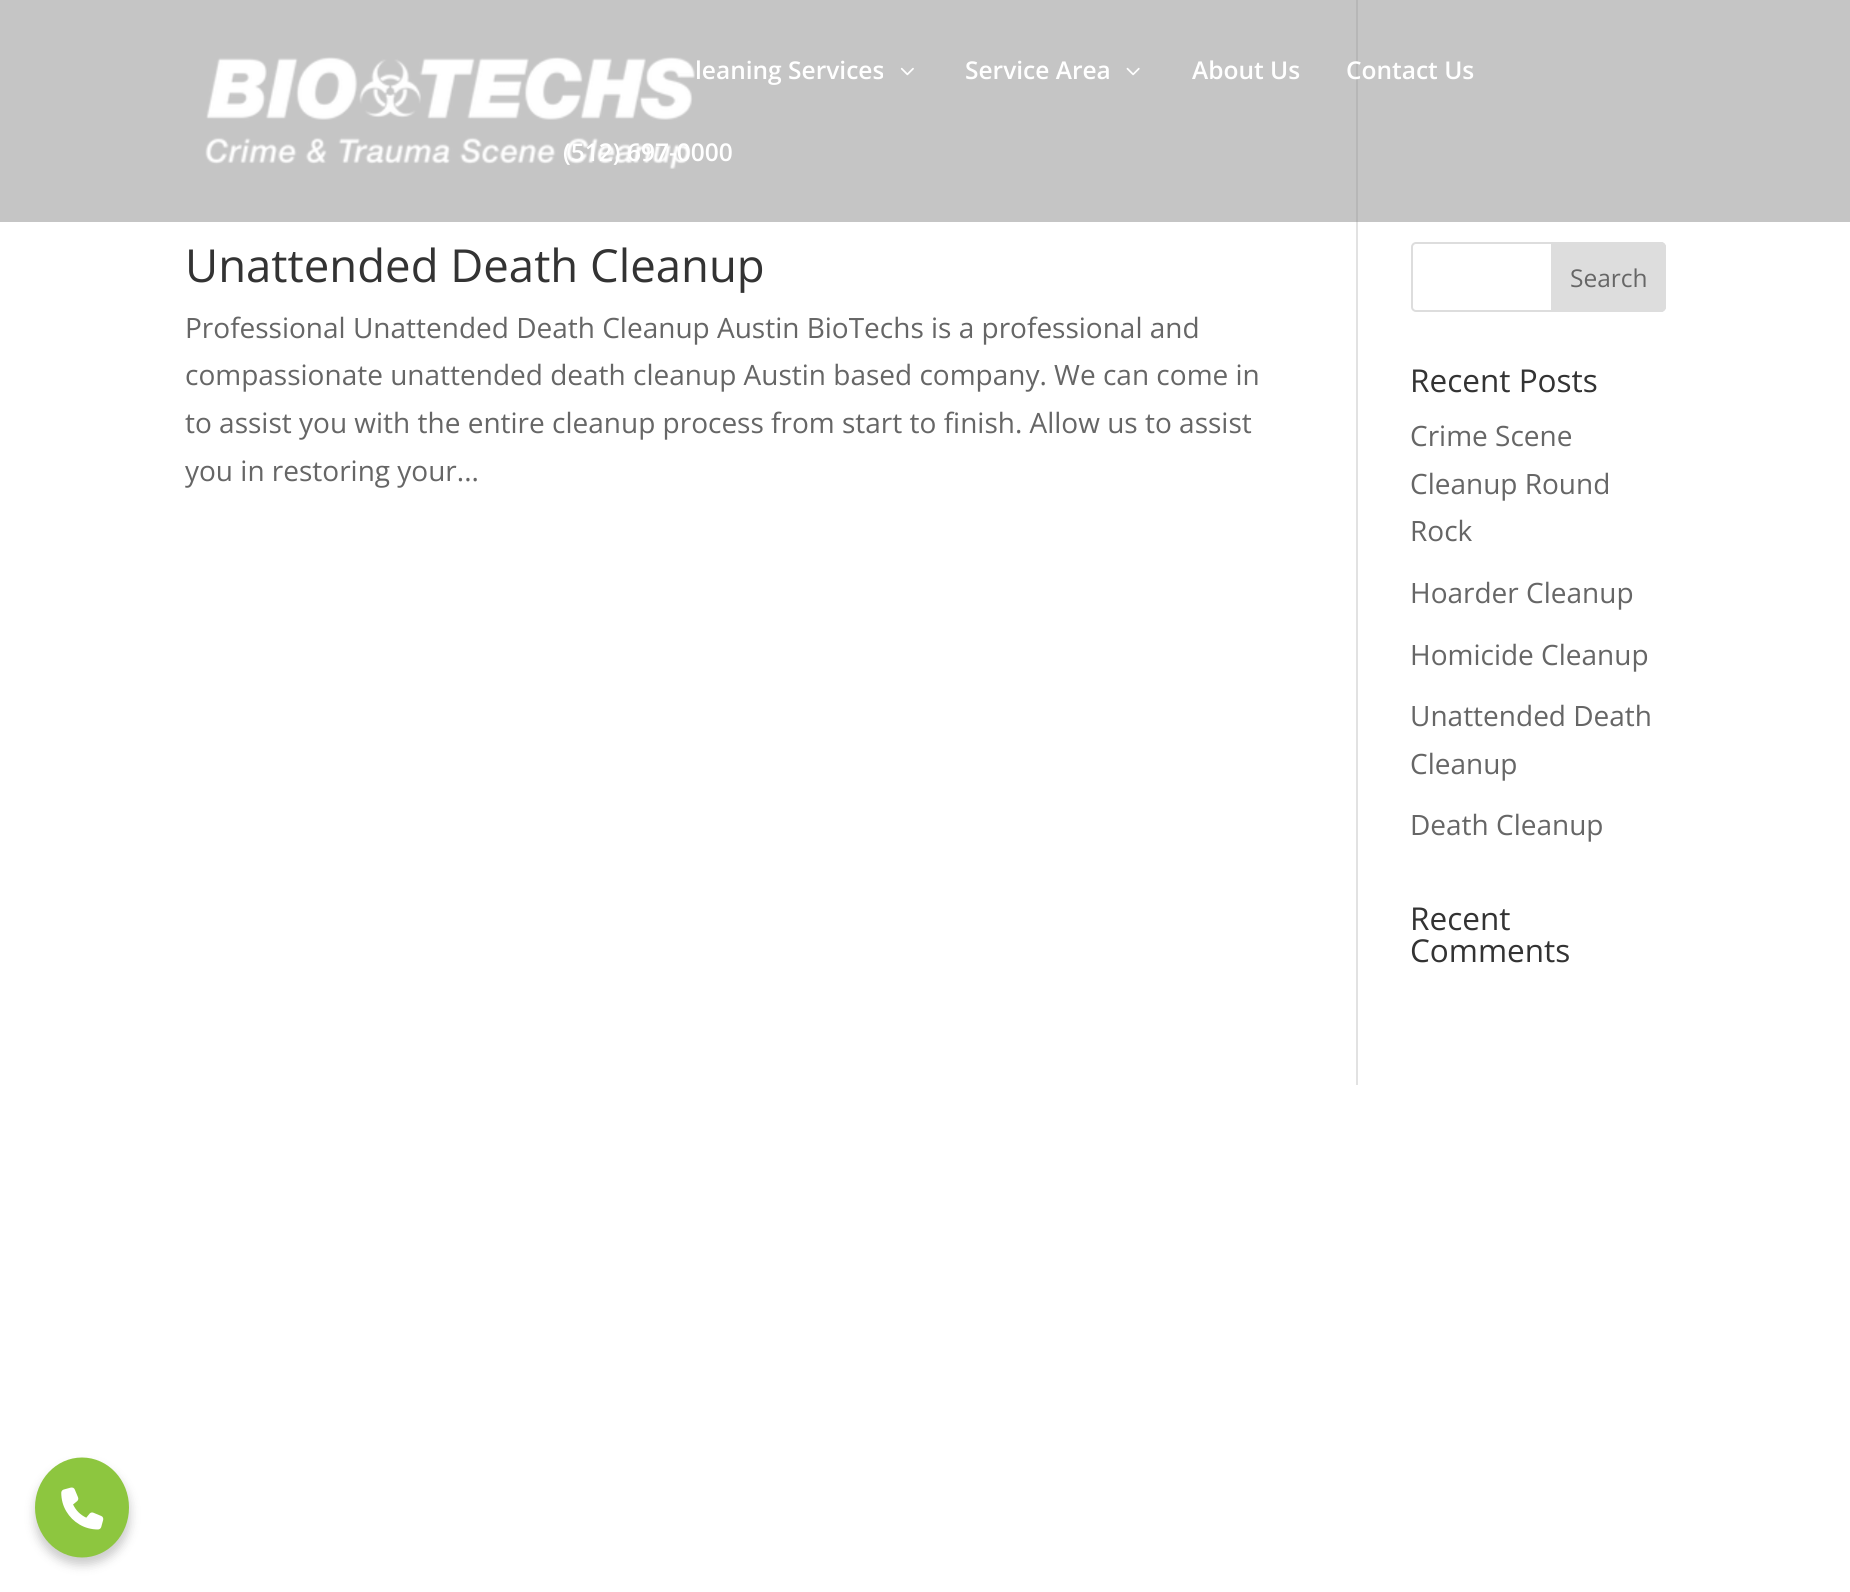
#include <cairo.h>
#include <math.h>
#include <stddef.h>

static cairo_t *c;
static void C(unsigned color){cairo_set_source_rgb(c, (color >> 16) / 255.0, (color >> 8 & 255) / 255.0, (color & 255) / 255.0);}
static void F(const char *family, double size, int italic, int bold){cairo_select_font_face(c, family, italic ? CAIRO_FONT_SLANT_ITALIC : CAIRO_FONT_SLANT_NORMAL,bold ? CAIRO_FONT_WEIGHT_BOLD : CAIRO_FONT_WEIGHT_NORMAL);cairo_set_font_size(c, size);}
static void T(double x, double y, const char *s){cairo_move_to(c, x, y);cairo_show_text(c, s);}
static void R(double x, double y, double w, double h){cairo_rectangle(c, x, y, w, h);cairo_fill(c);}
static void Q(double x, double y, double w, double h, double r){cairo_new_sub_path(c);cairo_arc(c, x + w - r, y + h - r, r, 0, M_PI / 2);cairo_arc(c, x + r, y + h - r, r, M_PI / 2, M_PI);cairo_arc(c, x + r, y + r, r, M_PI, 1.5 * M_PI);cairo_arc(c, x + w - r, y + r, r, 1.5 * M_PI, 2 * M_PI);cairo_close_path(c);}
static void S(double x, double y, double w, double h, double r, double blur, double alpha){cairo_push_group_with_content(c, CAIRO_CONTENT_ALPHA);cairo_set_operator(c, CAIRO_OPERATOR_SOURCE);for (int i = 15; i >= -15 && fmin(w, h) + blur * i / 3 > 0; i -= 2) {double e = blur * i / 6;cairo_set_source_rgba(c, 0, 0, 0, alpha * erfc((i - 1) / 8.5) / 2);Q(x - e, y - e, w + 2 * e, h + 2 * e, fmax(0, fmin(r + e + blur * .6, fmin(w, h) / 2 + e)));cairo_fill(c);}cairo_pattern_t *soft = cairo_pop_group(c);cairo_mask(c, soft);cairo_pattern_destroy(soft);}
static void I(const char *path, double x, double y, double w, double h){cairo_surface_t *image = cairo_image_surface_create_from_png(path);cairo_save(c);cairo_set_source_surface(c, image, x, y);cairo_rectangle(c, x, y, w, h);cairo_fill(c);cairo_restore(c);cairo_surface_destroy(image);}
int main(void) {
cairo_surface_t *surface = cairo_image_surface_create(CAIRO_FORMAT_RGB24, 1850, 1592);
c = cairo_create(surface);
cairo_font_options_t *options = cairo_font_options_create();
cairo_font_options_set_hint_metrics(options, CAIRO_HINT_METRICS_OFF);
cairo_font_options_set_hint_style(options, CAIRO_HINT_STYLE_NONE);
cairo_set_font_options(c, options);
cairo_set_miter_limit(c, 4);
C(0xffffff);
cairo_paint(c);
C(0xc5c5c5);
R(0,0,1850,222);
I("1.png",205,57,490,112);
F("Open Sans SemiBold",24.5,0,0);
C(0xffffff);
T(695,79,"leaning Services");
I("2.png",900,67,14,9);
T(965,79,"Service Area");
I("3.png",1126,67,14,9);
T(1192,79,"About Us");
C(0xb7b7b7);
R(1356,0,2,222);
C(0xffffff);
T(1346,79,"Contact Us");
T(563,161,"(512) 697-0000");
C(0xe2e2e2);
R(1356,222,2,863);
F("Open Sans",45.5,0,0);
C(0x333333);
T(185,282,"Unattended Death Cleanup");
F("Open Sans",28,0,0);
C(0x666666);
T(185,338,"Professional Unattended Death Cleanup Austin BioTechs is a professional and");
T(185,385,"compassionate unattended death cleanup Austin based company. We can come in");
T(185,433,"to assist you with the entire cleanup process from start to finish. Allow us to assist");
T(185,481,"you in restoring your...");
Q(1412,243,253,68,4);
C(0xdddddd);
cairo_stroke(c);
cairo_new_path(c);
cairo_move_to(c,1552,243);
cairo_line_to(c,1661,243);
cairo_curve_to(c,1663,243,1665,245,1665,247);
cairo_line_to(c,1665,307);
cairo_curve_to(c,1665,309,1663,311,1661,311);
cairo_line_to(c,1552,311);
cairo_close_path(c);
cairo_fill_preserve(c);
cairo_stroke(c);
F("Open Sans",24.5,0,0);
C(0x666666);
T(1570,287,"Search");
F("Open Sans",31.5,0,0);
C(0x333333);
T(1410,392,"Recent Posts");
F("Open Sans",28,0,0);
C(0x666666);
T(1410,446,"Crime Scene");
T(1410,494,"Cleanup Round");
T(1410,541,"Rock");
T(1410,603,"Hoarder Cleanup");
T(1410,665,"Homicide Cleanup");
T(1410,726,"Unattended Death");
T(1410,774,"Cleanup");
T(1410,835,"Death Cleanup");
F("Open Sans",31.5,0,0);
C(0x333333);
T(1410,930,"Recent");
T(1410,962,"Comments");
C(0x000000);
S(35,1465,95,100,47.5,5,.2);
C(0x8dc63f);
cairo_new_path(c);
cairo_move_to(c,82,1457.5);
cairo_curve_to(c,108,1457.5,129,1480,129,1507.5);
cairo_curve_to(c,129,1535,108,1557.5,82,1557.5);
cairo_curve_to(c,56,1557.5,35,1535,35,1507.5);
cairo_curve_to(c,35,1480,56,1457.5,82,1457.5);
cairo_close_path(c);
cairo_fill(c);
I("4.png",61,1487,43,43);
cairo_surface_write_to_png(surface, "o.png");
cairo_font_options_destroy(options);
cairo_destroy(c);
cairo_surface_destroy(surface);
return 0;
}
